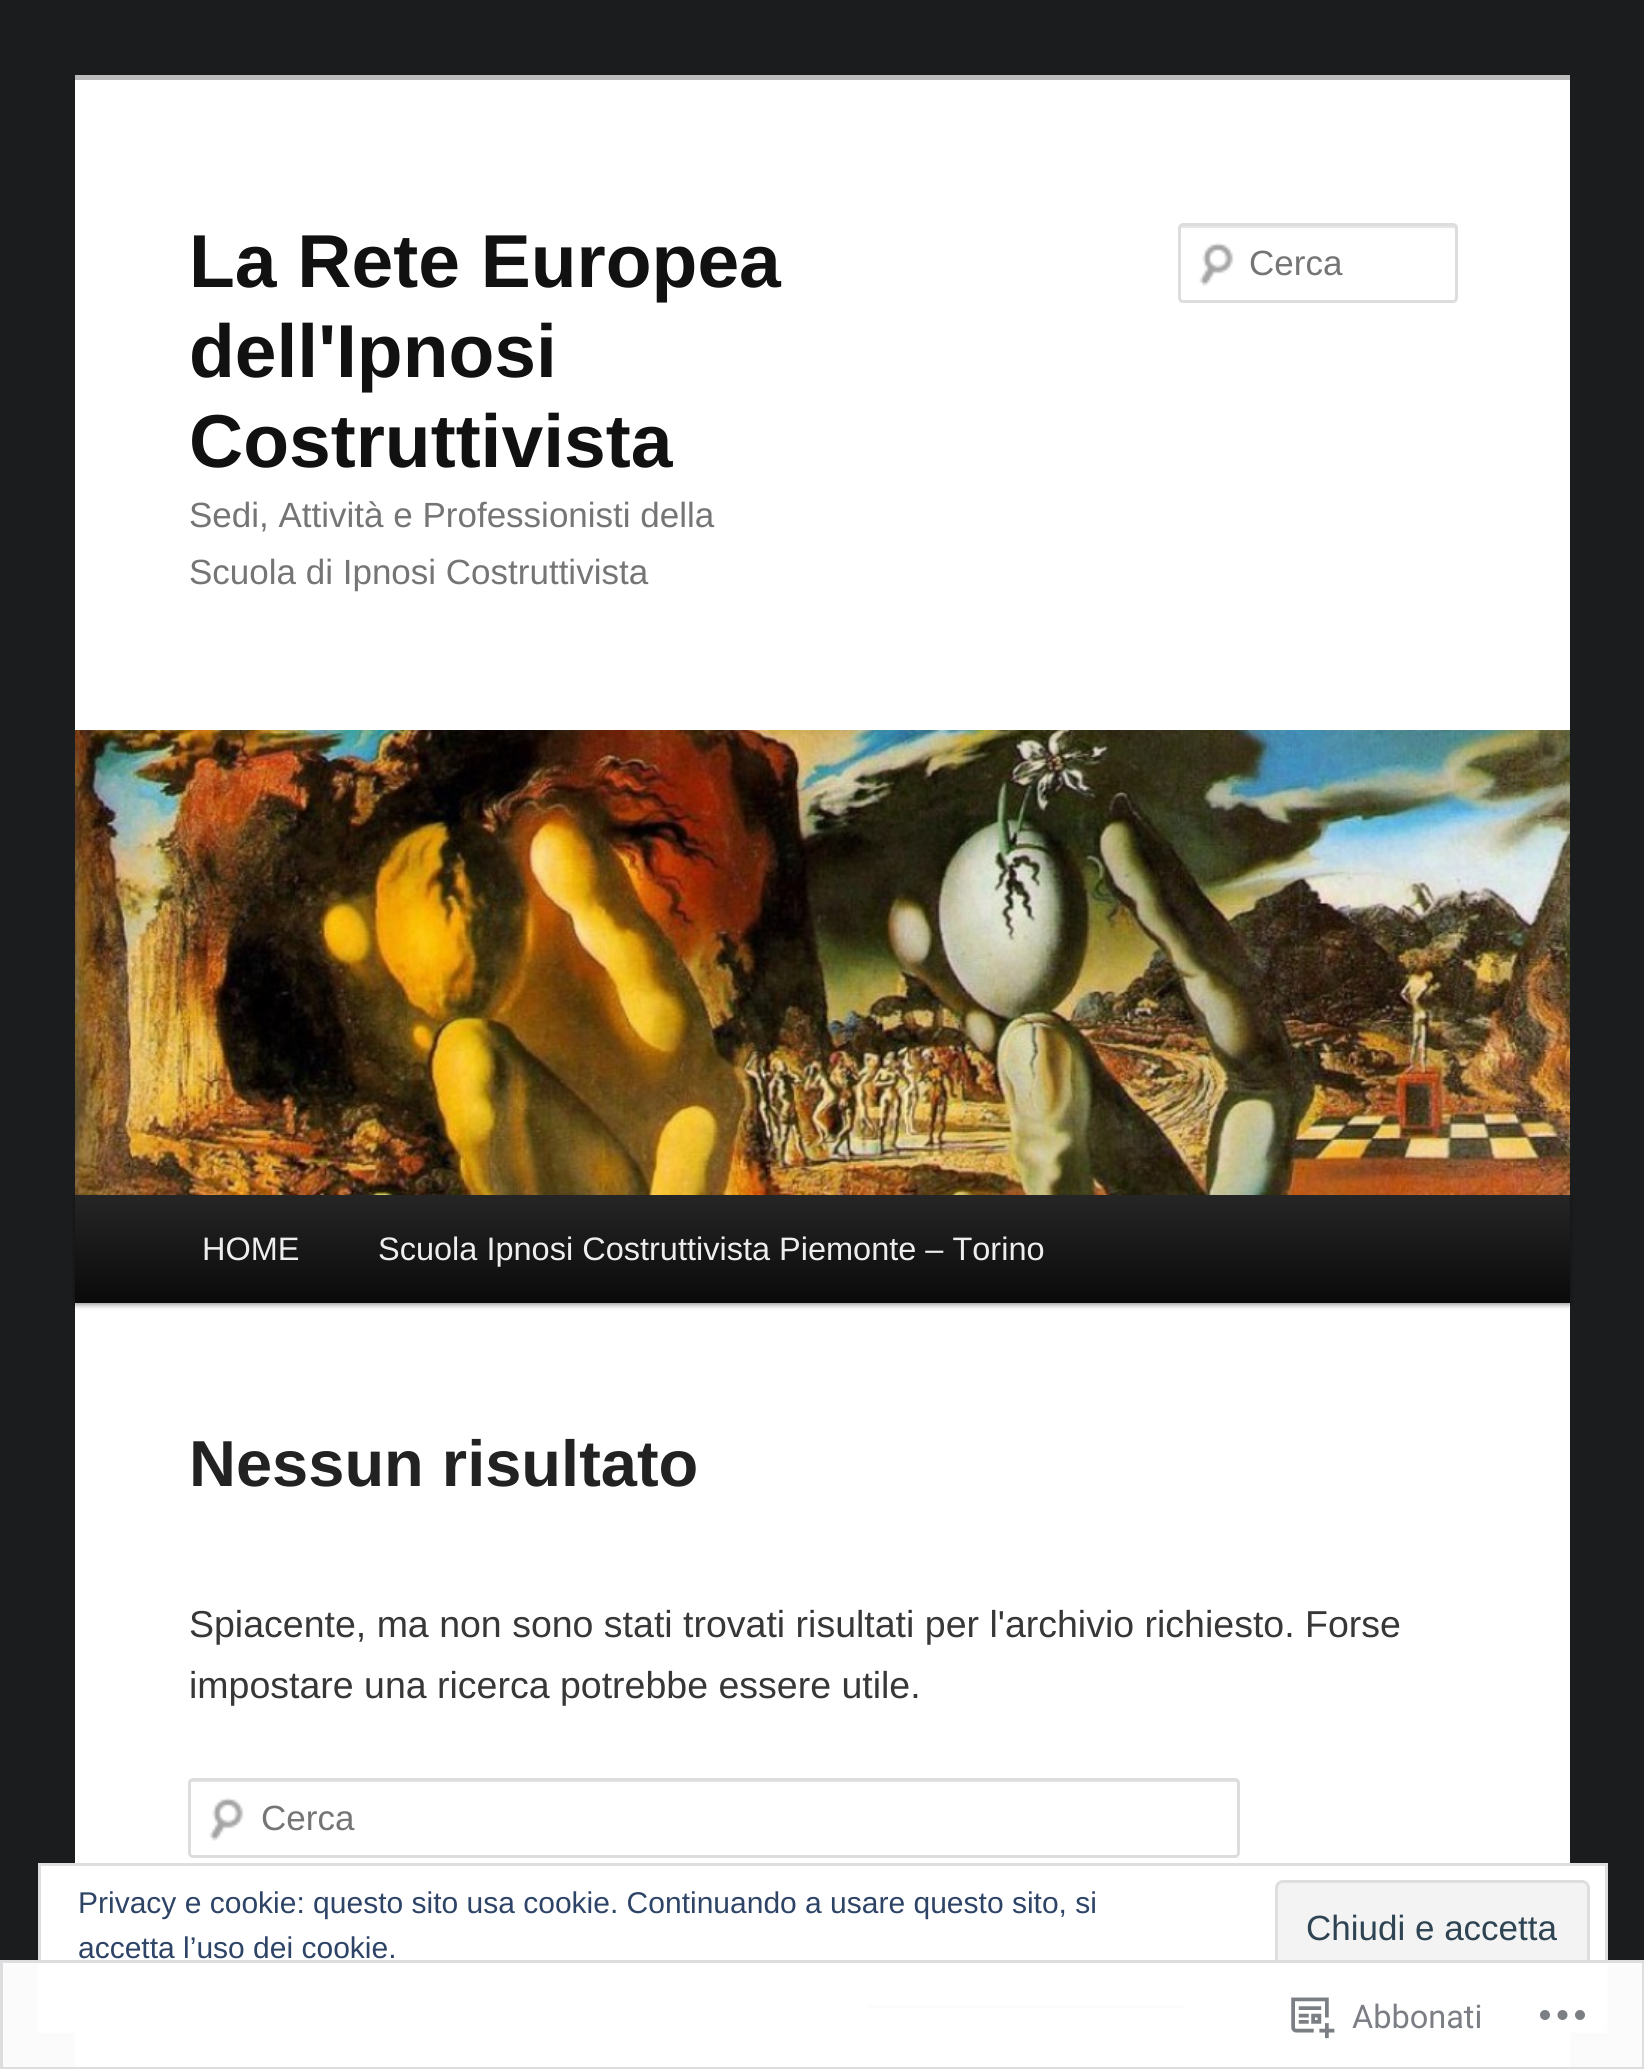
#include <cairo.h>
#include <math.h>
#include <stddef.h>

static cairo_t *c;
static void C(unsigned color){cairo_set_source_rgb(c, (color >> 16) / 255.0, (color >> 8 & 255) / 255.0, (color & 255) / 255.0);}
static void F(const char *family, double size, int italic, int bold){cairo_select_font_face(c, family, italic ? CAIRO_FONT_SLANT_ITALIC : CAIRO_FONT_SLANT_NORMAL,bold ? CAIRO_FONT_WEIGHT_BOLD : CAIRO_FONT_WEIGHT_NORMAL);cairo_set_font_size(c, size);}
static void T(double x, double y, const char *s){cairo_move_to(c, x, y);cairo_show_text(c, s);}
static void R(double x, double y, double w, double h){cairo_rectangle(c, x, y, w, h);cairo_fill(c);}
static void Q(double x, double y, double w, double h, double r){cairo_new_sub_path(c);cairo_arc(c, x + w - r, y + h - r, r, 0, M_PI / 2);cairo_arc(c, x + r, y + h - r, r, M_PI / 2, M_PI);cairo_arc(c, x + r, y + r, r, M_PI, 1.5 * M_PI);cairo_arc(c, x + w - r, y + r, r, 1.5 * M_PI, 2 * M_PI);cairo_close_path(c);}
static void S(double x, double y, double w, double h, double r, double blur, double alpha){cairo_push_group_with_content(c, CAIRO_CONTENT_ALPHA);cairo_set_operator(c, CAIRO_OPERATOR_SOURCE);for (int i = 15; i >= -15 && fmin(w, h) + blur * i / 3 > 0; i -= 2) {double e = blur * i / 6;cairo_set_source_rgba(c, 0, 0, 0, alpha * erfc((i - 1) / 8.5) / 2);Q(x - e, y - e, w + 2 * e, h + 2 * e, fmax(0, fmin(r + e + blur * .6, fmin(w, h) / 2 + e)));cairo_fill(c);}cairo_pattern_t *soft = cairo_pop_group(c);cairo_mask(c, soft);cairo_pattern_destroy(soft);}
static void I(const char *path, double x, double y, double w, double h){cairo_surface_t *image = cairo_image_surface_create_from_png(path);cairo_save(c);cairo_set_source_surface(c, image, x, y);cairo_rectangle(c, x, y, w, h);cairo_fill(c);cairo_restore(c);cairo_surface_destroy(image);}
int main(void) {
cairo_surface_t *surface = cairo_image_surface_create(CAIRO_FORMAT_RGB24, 1644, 2069);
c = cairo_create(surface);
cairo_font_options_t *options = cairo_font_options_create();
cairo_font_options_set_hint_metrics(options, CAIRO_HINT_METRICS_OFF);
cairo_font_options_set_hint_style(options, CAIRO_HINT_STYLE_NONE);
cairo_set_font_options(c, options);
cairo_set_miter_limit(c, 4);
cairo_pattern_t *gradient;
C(0x1a1c1e);
cairo_paint(c);
C(0xffffff);
R(75,80,1495,1989);
C(0xbbbbbb);
R(75,75,1495,5);
F("Liberation Sans",75,0,1);
C(0x111111);
T(189,287,"La Rete Europea");
T(189,377,"dell'Ipnosi");
T(189,467,"Costruttivista");
F("Liberation Sans",35,0,0);
C(0x757575);
T(189,527,"Sedi, Attività e Professionisti della");
T(189,584,"Scuola di Ipnosi Costruttivista");
I("1.png",1199,242,35,44);
C(0xe6e6e6);
cairo_new_path(c);
cairo_move_to(c,1182,228);
cairo_line_to(c,1452,228);
cairo_curve_to(c,1454,228,1455,229,1455,230);
cairo_line_to(c,1455,228);
cairo_curve_to(c,1455,226,1454,225,1452,225);
cairo_line_to(c,1182,225);
cairo_curve_to(c,1181,225,1180,226,1180,228);
cairo_line_to(c,1180,230);
cairo_curve_to(c,1180,229,1181,228,1182,228);
cairo_close_path(c);
cairo_fill(c);
Q(1179.5,224.5,277,77,3.5);
C(0xdddddd);
cairo_set_line_width(c,3);
cairo_stroke(c);
C(0x757575);
T(1249,275,"Cerca");
C(0x000000);
S(75,1198,1495,107,0,2.5,.4);
I("2.png",75,730,1495,465);
gradient = cairo_pattern_create_linear(823,1195,823,1303);
cairo_pattern_add_color_stop_rgba(gradient,0,0.145,0.145,0.145,1);
cairo_pattern_add_color_stop_rgba(gradient,1,0.039,0.039,0.039,1);
cairo_set_source(c,gradient);
cairo_pattern_destroy(gradient);
R(75,1195,1495,108);
F("Liberation Sans",32.5,0,0);
C(0xeeeeee);
T(202,1260,"HOME");
T(378,1260,"Scuola Ipnosi Costruttivista Piemonte – Torino");
F("Liberation Sans",65,0,1);
C(0x222222);
T(189,1486,"Nessun risultato");
F("Liberation Sans",37.5,0,0);
C(0x373737);
T(189,1637,"Spiacente, ma non sono stati trovati risultati per l'archivio richiesto. Forse");
T(189,1698,"impostare una ricerca potrebbe essere utile.");
I("1.png",209,1797,35,44);
C(0xe6e6e6);
cairo_new_path(c);
cairo_move_to(c,192,1782);
cairo_line_to(c,1235,1782);
cairo_curve_to(c,1236,1782,1238,1784,1238,1785);
cairo_line_to(c,1238,1782);
cairo_curve_to(c,1238,1781,1237,1780,1236,1780);
cairo_line_to(c,192,1780);
cairo_curve_to(c,191,1780,190,1781,190,1782);
cairo_line_to(c,190,1785);
cairo_curve_to(c,190,1784,191,1782,192,1782);
cairo_close_path(c);
cairo_fill(c);
Q(189.5,1779.5,1049,77,3.5);
C(0xdddddd);
cairo_stroke(c);
F("Liberation Sans",35,0,0);
C(0x757575);
T(261,1830,"Cerca");
C(0x777777);
R(150,2068,10,1);
C(0xffffff);
cairo_rectangle(c,39.5,1864.5,1567,167);
cairo_fill_preserve(c);
C(0xdedede);
cairo_stroke(c);
F("Liberation Sans",30,0,0);
C(0x2e4467);
T(78,1913,"Privacy e cookie: questo sito usa cookie. Continuando a usare questo sito, si");
C(0xf3f3f3);
Q(1276.5,1881.5,312,95,6.5);
cairo_fill_preserve(c);
C(0xdedede);
cairo_stroke(c);
F("Liberation Sans",35,0,0);
C(0x2e4453);
T(1306,1940,"Chiudi e accetta");
F("Liberation Sans",30,0,0);
C(0x2e4467);
T(78,1958,"accetta l’uso dei cookie.");
R(868,2005,315,3);
cairo_set_source_rgba(c,1,1,1,0.98);
R(0,1960,1644,109);
cairo_rectangle(c,1.5,1961.5,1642,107);
cairo_set_source_rgba(c,0.863,0.863,0.871,0.98);
cairo_stroke(c);
I("3.png",1291,1997,44,42);
F("Roboto",32.5,0,0);
C(0x7b7f85);
T(1352,2028,"Abbonati");
I("4.png",1540,2010,45,10);
cairo_surface_write_to_png(surface, "o.png");
cairo_font_options_destroy(options);
cairo_destroy(c);
cairo_surface_destroy(surface);
return 0;
}
